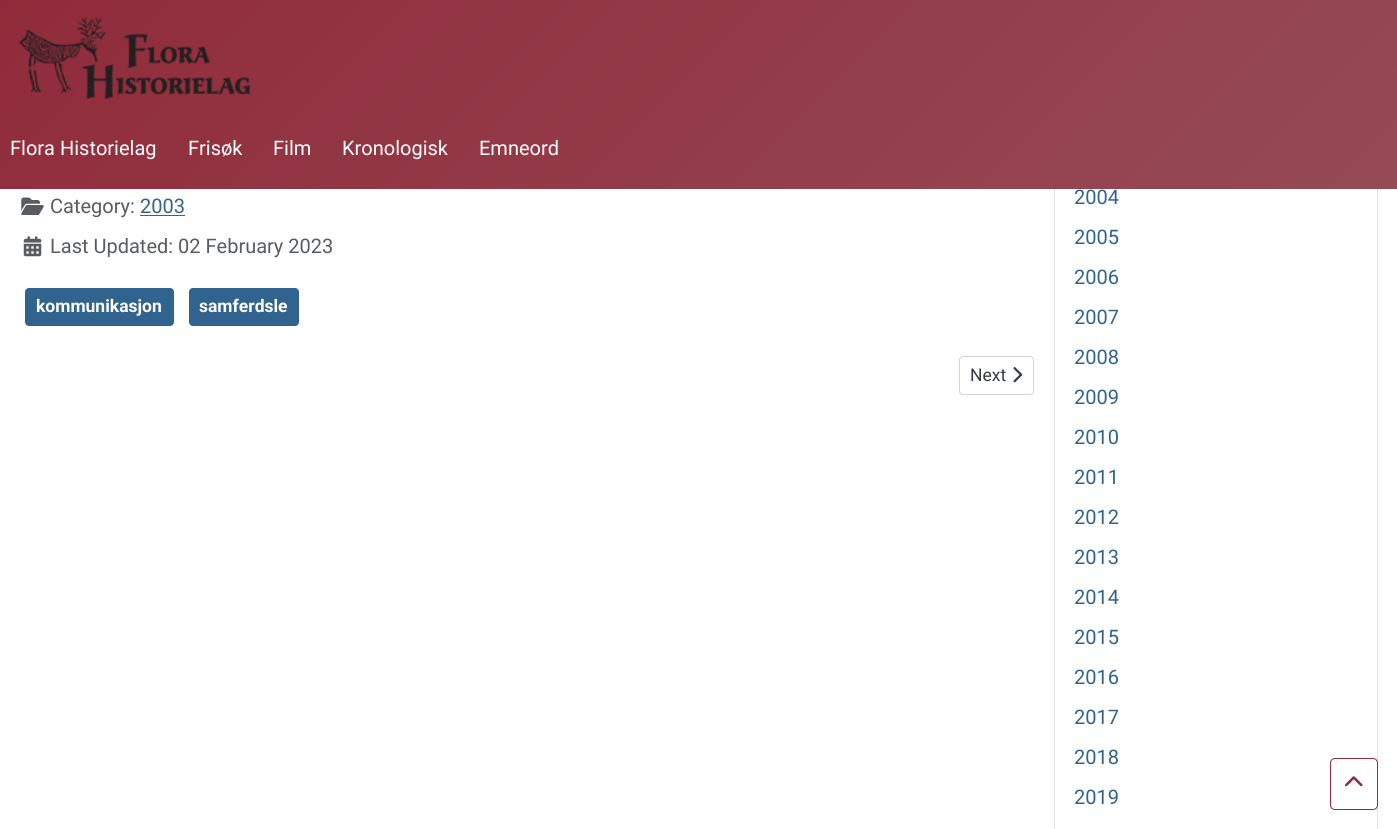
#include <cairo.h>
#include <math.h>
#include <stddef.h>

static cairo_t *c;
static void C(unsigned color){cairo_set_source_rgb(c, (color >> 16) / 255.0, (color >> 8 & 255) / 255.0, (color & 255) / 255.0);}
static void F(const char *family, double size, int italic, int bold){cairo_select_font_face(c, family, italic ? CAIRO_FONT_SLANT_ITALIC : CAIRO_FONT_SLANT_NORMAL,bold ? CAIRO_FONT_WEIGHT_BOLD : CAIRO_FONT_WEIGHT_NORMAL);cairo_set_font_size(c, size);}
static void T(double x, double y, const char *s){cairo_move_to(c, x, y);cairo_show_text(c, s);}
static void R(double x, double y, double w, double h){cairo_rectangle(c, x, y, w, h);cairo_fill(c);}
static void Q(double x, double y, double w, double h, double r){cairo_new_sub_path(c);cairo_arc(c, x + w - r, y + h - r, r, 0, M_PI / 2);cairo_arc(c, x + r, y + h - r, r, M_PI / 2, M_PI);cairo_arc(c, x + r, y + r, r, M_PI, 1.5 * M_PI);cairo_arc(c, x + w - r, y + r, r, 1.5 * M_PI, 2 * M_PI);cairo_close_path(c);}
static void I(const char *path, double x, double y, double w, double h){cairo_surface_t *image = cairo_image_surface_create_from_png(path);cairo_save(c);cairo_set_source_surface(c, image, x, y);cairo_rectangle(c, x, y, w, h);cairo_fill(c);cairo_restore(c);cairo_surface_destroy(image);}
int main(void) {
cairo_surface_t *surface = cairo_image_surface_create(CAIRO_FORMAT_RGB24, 1397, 829);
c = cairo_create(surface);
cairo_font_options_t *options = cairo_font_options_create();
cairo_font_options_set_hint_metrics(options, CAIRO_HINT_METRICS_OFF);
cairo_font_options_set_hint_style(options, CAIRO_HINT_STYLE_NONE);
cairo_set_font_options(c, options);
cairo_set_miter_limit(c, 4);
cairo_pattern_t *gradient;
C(0xffffff);
cairo_paint(c);
cairo_rectangle(c,1054.5,-.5,323,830);
C(0xdfe3e7);
cairo_set_line_width(c,1);
cairo_stroke(c);
gradient = cairo_pattern_create_linear(302,-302,1095,491);
cairo_pattern_add_color_stop_rgba(gradient,0,0.569,0.169,0.231,1);
cairo_pattern_add_color_stop_rgba(gradient,1,0.584,0.294,0.337,1);
cairo_set_source(c,gradient);
cairo_pattern_destroy(gradient);
R(0,0,1397,189);
I("1.png",18,16,233,83);
F("Roboto",20,0,0);
C(0xffffff);
T(10,155,"Flora Historielag");
T(188,155,"Frisøk");
T(273,155,"Film");
T(342,155,"Kronologisk");
T(479,155,"Emneord");
I("2.png",21,197,23,18);
C(0x595c5f);
T(50,213,"Category:");
C(0x30638d);
T(140,213,"2003");
R(140,215,45,1);
I("3.png",23,236,19,21);
C(0x595c5f);
T(50,253,"Last Updated: 02 February 2023");
C(0x30638d);
Q(25.5,288.5,148,37,3.5);
cairo_fill_preserve(c);
cairo_stroke(c);
F("Roboto",17.5,0,1);
C(0xffffff);
T(36,312,"kommunikasjon");
C(0x30638d);
Q(189.5,288.5,109,37,3.5);
cairo_fill_preserve(c);
cairo_stroke(c);
C(0xffffff);
T(199,312,"samferdsle");
Q(959.5,356.5,74,38,3.5);
C(0xced4da);
cairo_stroke(c);
F("Roboto",17.5,0,0);
C(0x353b41);
T(970,381,"Next");
I("4.png",1013,367,10,16);
F("Roboto",20,0,0);
C(0x30638d);
T(1074,204,"2004");
T(1074,244,"2005");
T(1074,284,"2006");
T(1074,324,"2007");
T(1074,364,"2008");
T(1074,404,"2009");
T(1074,444,"2010");
T(1074,484,"2011");
T(1074,524,"2012");
T(1074,564,"2013");
T(1074,604,"2014");
T(1074,644,"2015");
T(1074,684,"2016");
T(1074,724,"2017");
T(1074,764,"2018");
T(1074,804,"2019");
C(0xffffff);
Q(1330.5,758.5,47,51,4.5);
cairo_fill_preserve(c);
C(0x912b3b);
cairo_stroke(c);
I("5.png",1345,776,18,11);
cairo_surface_write_to_png(surface, "o.png");
cairo_font_options_destroy(options);
cairo_destroy(c);
cairo_surface_destroy(surface);
return 0;
}
